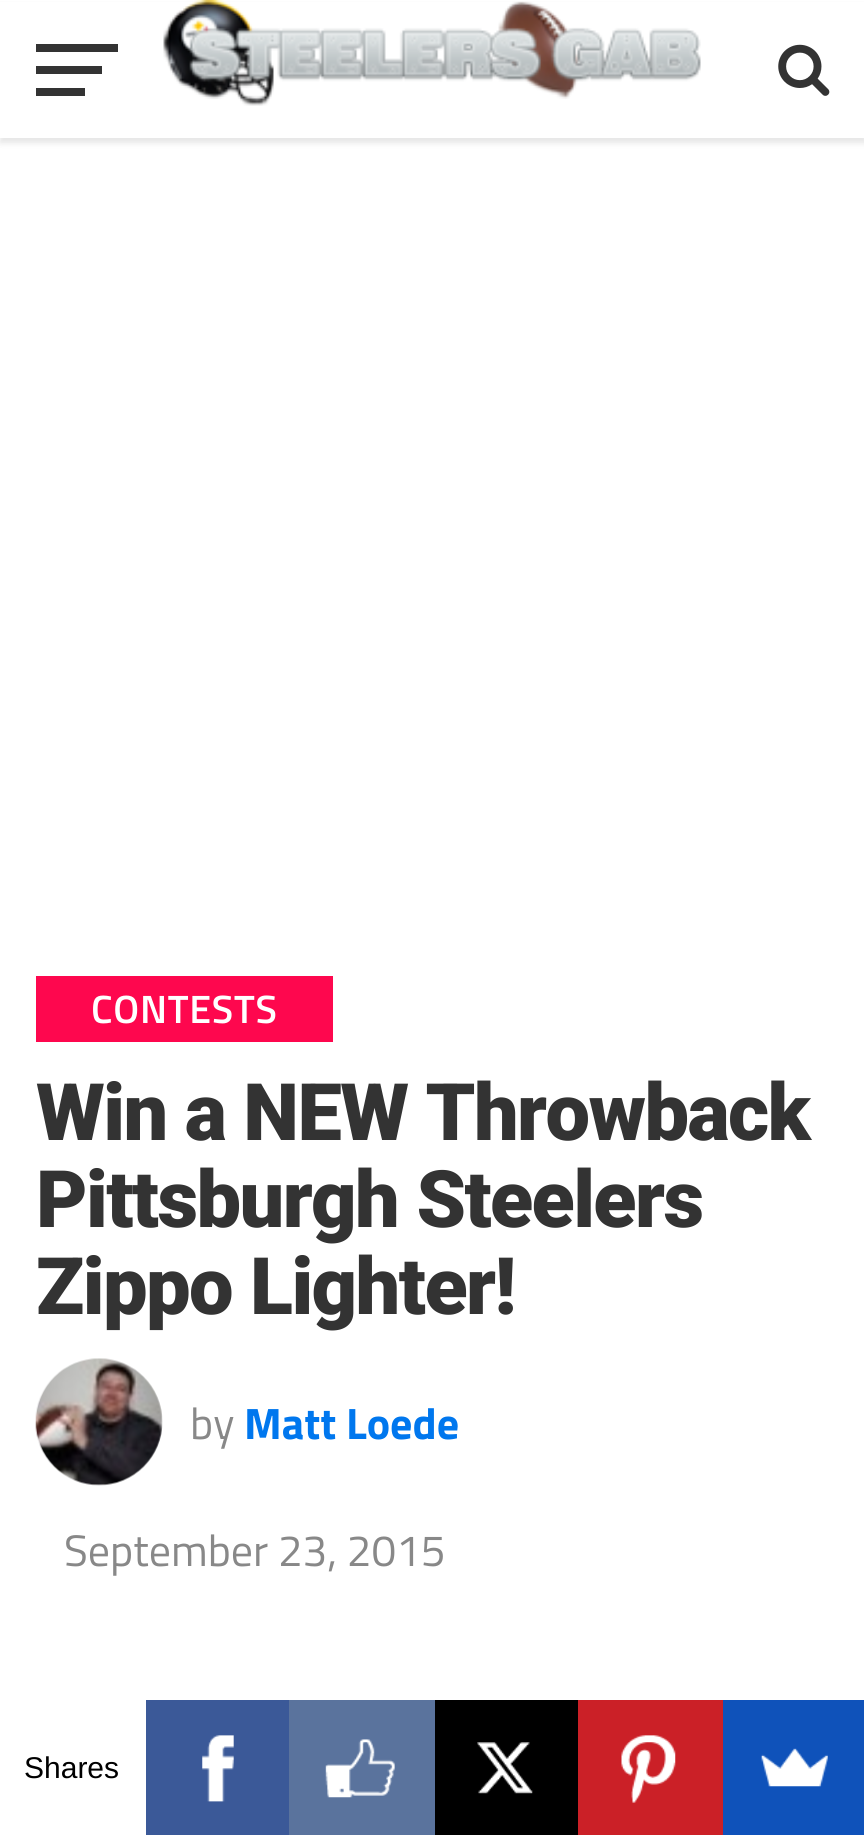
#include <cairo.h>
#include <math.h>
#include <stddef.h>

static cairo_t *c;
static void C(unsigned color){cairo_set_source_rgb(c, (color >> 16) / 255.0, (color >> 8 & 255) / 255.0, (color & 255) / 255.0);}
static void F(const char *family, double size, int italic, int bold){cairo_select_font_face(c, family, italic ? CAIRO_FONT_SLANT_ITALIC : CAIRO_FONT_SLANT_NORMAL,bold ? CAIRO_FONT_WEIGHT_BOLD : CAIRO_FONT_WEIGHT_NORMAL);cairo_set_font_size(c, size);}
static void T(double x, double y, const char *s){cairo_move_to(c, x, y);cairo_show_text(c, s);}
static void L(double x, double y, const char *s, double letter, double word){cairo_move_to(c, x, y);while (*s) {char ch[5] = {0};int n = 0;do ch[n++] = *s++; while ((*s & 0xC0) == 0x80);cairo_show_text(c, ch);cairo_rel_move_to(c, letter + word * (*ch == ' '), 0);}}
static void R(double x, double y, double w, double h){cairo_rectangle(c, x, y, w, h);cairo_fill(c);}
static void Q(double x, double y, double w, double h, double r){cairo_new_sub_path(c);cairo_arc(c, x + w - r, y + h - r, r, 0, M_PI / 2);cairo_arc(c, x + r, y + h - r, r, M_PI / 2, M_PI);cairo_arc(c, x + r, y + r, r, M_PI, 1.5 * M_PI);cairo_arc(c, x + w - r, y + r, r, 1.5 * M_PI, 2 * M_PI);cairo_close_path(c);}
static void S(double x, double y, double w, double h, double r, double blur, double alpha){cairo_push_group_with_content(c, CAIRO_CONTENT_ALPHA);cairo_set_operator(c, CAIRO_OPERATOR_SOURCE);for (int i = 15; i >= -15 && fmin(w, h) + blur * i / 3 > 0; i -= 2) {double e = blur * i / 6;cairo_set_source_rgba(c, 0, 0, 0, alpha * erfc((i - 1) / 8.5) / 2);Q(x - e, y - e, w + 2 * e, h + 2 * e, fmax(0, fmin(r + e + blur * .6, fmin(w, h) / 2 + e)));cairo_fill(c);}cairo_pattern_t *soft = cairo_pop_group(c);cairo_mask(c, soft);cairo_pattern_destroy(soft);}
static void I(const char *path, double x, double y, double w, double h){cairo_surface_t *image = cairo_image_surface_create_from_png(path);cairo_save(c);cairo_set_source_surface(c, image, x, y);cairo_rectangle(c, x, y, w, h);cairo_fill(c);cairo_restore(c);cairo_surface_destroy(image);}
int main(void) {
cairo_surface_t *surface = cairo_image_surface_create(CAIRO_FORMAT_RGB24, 864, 1835);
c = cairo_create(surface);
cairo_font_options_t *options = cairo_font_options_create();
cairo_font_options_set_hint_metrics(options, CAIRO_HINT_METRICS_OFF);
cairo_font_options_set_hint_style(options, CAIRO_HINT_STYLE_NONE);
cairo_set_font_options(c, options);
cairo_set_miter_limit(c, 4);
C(0xffffff);
cairo_paint(c);
C(0x000000);
S(0,6,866,137,0,3,.1);
C(0xffffff);
R(0,2,864,136);
C(0x333333);
R(36,44,82,8);
R(36,66,66,8);
R(36,88,49,8);
I("1.png",163,0,538,106);
I("2.png",778,44,52,52);
C(0xfe074e);
R(36,976,297,66);
F("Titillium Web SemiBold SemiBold",39.5,0,0);
C(0xffffff);
L(91,1023,"CONTESTS",.75,0);
F("Roboto Black",79.25,0,0);
C(0x333333);
L(36,1140,"Win a NEW Throwback",-1.6,0);
L(36,1227,"Pittsburgh Steelers",-1.6,0);
L(36,1314,"Zippo Lighter!",-1.6,0);
I("3.png",35,1358,128,128);
F("Titillium Web",44,0,0);
C(0x888888);
T(190,1439,"by");
F("Titillium Web",44,0,1);
C(0x0077ee);
T(244,1439,"Matt Loede");
F("Titillium Web",44,0,0);
C(0x888888);
T(64,1566,"September 23, 2015");
F("Liberation Sans",30,0,0);
C(0x000000);
T(24,1778,"Shares");
C(0x3b5998);
R(146,1700,143,135);
I("4.png",202,1735,32,67);
C(0x5a739d);
R(289,1700,146,135);
I("5.png",325,1739,70,59);
C(0x000000);
R(435,1700,143,135);
I("6.png",477,1742,56,52);
C(0xcb2027);
R(578,1700,145,135);
I("7.png",621,1735,55,68);
C(0x0f52ba);
R(723,1700,141,135);
I("8.png",761,1748,67,39);
cairo_surface_write_to_png(surface, "o.png");
cairo_font_options_destroy(options);
cairo_destroy(c);
cairo_surface_destroy(surface);
return 0;
}
